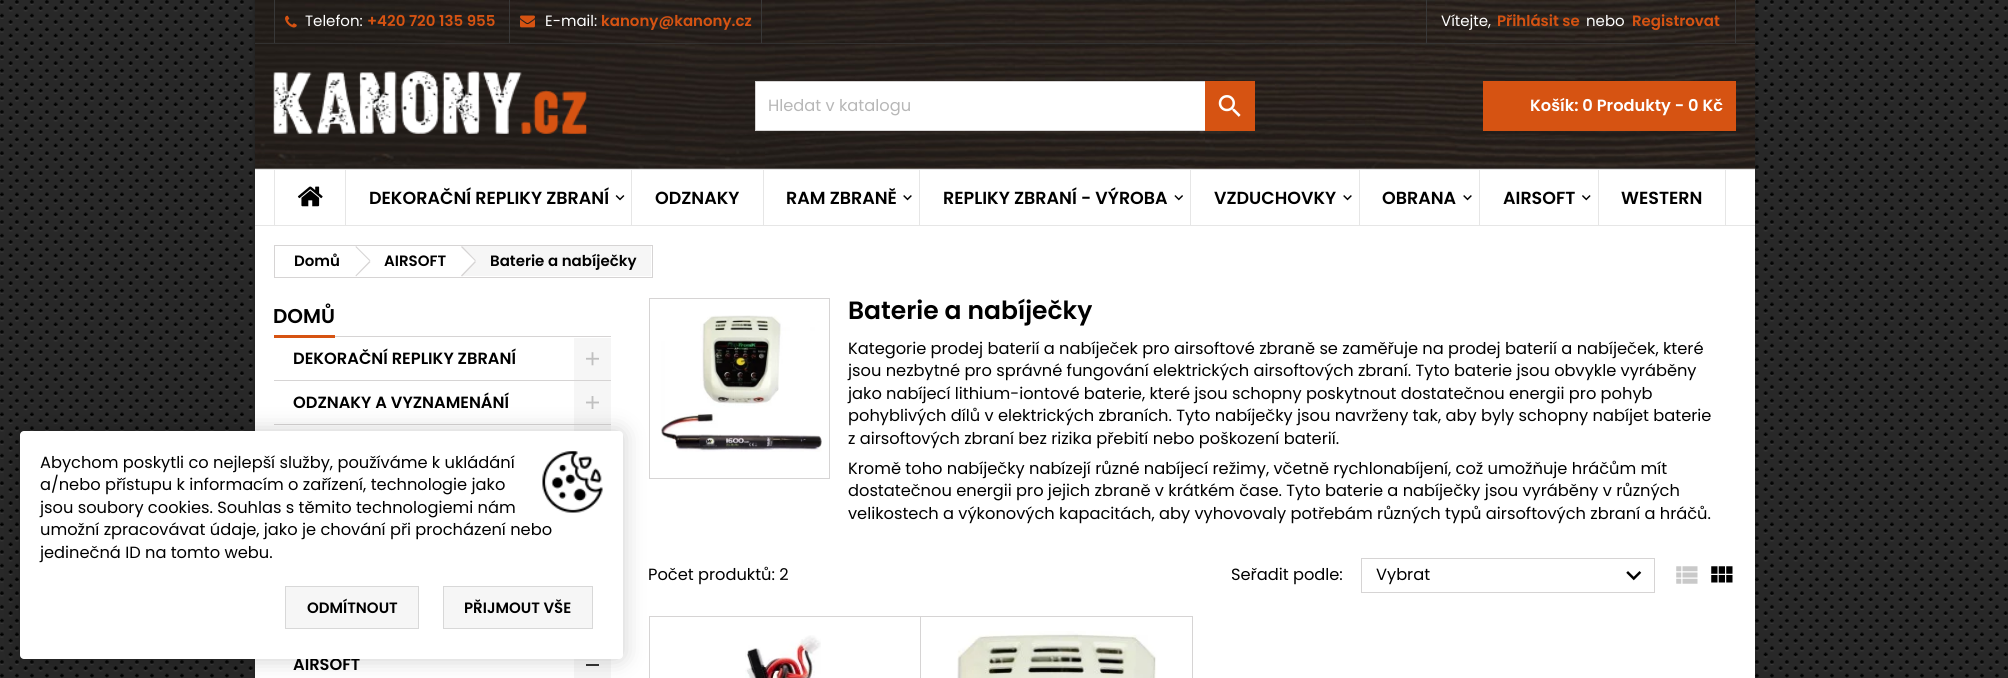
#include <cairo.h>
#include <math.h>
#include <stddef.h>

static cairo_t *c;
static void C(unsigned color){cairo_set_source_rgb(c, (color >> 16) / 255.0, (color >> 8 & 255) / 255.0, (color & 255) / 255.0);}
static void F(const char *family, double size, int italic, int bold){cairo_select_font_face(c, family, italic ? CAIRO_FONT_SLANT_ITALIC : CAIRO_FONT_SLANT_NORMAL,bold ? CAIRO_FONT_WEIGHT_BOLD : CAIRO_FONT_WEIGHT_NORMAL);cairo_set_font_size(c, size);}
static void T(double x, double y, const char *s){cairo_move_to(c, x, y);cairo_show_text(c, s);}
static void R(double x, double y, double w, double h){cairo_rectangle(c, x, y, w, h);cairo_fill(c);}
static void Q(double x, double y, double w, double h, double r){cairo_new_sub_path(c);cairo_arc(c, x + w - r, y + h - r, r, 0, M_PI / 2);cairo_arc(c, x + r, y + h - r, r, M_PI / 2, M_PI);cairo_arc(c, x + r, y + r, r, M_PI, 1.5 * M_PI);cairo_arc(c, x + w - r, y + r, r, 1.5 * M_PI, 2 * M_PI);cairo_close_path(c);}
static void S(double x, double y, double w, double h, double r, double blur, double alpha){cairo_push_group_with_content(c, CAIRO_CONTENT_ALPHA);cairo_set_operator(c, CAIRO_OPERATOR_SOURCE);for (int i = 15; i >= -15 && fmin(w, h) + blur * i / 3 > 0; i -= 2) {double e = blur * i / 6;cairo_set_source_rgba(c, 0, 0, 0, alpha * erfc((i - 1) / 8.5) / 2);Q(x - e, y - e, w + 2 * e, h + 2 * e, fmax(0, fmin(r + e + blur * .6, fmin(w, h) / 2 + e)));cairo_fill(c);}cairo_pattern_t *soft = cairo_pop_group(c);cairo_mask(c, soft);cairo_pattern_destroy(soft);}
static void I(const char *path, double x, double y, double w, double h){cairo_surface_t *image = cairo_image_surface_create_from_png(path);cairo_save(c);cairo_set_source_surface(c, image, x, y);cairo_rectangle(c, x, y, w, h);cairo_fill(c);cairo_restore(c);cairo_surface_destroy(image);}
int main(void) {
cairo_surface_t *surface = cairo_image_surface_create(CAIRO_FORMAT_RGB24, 2008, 678);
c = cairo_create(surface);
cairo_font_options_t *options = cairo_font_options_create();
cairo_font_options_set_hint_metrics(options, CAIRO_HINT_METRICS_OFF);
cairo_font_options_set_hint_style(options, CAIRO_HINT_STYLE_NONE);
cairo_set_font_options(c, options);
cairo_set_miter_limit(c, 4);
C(0xffffff);
cairo_paint(c);
I("1.png",0,0,2008,678);
C(0x000000);
S(255,0,1500,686,0,2.5,.2);
C(0xffffff);
R(255,168,1500,510);
I("2.png",255,0,1500,43);
C(0x383838);
R(255,43,1500,1);
R(274,0,1,43);
I("3.png",285,15,12,13);
F("Poppins",15,0,0);
C(0xffffff);
T(305,26,"Telefon:");
F("Poppins SemiBold",15,0,0);
C(0xd65312);
T(367,26,"+420 720 135 955");
C(0x383838);
R(761,0,1,43);
R(509,0,1,43);
I("4.png",520,15,15,13);
F("Poppins",15,0,0);
C(0xffffff);
T(545,26,"E-mail:");
F("Poppins SemiBold",15,0,0);
C(0xd65312);
T(601,26,"kanony@kanony.cz");
C(0x383838);
R(1735,0,1,43);
R(1426,0,1,43);
F("Poppins",15,0,0);
C(0xffffff);
T(1441,26,"Vítejte,");
F("Poppins SemiBold",15,0,0);
C(0xd65312);
T(1497,26,"Přihlásit se");
F("Poppins",15,0,0);
C(0xffffff);
T(1586,26,"nebo");
F("Poppins SemiBold",15,0,0);
C(0xd65312);
T(1632,26,"Registrovat");
I("5.png",255,43,1500,126);
I("6.png",273,71,314,63);
C(0xffffff);
R(756,82,449,48);
cairo_rectangle(c,755.5,81.5,499,49);
C(0xd6d4d4);
cairo_set_line_width(c,1);
cairo_stroke(c);
F("Poppins",16.25,0,0);
C(0xb7b7b7);
T(768,111,"Hledat v katalogu");
C(0xd65312);
R(1205,81,50,50);
I("7.png",1218,95,23,22);
R(1483,81,253,50);
F("Poppins SemiBold",16.25,0,0);
C(0xffffff);
T(1530,111,"Košík: 0 Produkty - 0 Kč");
C(0xe6e6e6);
R(255,169,1500,1);
R(255,225,1500,1);
R(274,170,1,55);
I("8.png",297,186,26,21);
R(345,170,1,55);
F("Poppins SemiBold",17.5,0,0);
C(0x000000);
T(369,204,"DEKORAČNÍ REPLIKY ZBRANÍ");
I("9.png",615,195,10,6);
C(0xe6e6e6);
R(631,170,1,55);
C(0x000000);
T(655,204,"ODZNAKY");
C(0xe6e6e6);
R(763,170,1,55);
C(0x000000);
T(786,204,"RAM ZBRANĚ");
I("10.png",903,195,9,6);
C(0xe6e6e6);
R(919,170,1,55);
C(0x000000);
T(943,204,"REPLIKY ZBRANÍ - VÝROBA");
I("11.png",1174,195,9,6);
C(0xe6e6e6);
R(1190,170,1,55);
C(0x000000);
T(1214,204,"VZDUCHOVKY");
I("10.png",1343,195,9,6);
C(0xe6e6e6);
R(1359,170,1,55);
C(0x000000);
T(1382,204,"OBRANA");
I("10.png",1463,195,9,6);
C(0xe6e6e6);
R(1479,170,1,55);
C(0x000000);
T(1503,204,"AIRSOFT");
I("12.png",1582,195,9,6);
C(0xe6e6e6);
R(1725,170,1,55);
R(1598,170,1,55);
C(0x000000);
T(1621,204,"WESTERN");
cairo_rectangle(c,274.5,245.5,378,32);
C(0xd6d4d4);
cairo_stroke(c);
F("Poppins SemiBold",15,0,0);
C(0x000000);
T(294,266,"Domů");
C(0xd6d4d4);
cairo_new_path(c);
cairo_move_to(c,356,246);
cairo_line_to(c,370.5,260.5);
cairo_line_to(c,369.5,261);
cairo_line_to(c,355.5,247);
cairo_close_path(c);
cairo_move_to(c,369.5,261);
cairo_line_to(c,370.5,262);
cairo_line_to(c,356,276.5);
cairo_line_to(c,355.5,275.5);
cairo_close_path(c);
cairo_fill(c);
C(0x000000);
T(384,266,"AIRSOFT");
C(0xf6f6f6);
R(463,246,188,30);
C(0xffffff);
cairo_new_path(c);
cairo_move_to(c,462.5,247);
cairo_line_to(c,475,259.5);
cairo_curve_to(c,476,260.5,476,262,475,263);
cairo_line_to(c,462.5,275.5);
cairo_curve_to(c,462,276.5,460,276.5,459,275.5);
cairo_line_to(c,447,263);
cairo_curve_to(c,446,262,446,260.5,447,259.5);
cairo_line_to(c,459,247);
cairo_curve_to(c,460,246,462,246,462.5,247);
cairo_close_path(c);
cairo_fill(c);
C(0xd6d4d4);
cairo_new_path(c);
cairo_move_to(c,462,246);
cairo_line_to(c,476,260.5);
cairo_line_to(c,475,261);
cairo_line_to(c,461,247);
cairo_close_path(c);
cairo_move_to(c,475,261);
cairo_line_to(c,476,262);
cairo_line_to(c,462,276.5);
cairo_line_to(c,461,275.5);
cairo_close_path(c);
cairo_fill(c);
C(0x000000);
T(490,266,"Baterie a nabíječky");
C(0xd6d4d4);
R(335,336,276,1);
C(0xd65312);
R(274,335,61,3);
F("Poppins SemiBold",20,0,0);
C(0x000000);
T(273,323,"DOMŮ");
C(0xd6d4d4);
R(274,380,337,1);
F("Poppins SemiBold",16.25,0,0);
C(0x000000);
T(293,364,"DEKORAČNÍ REPLIKY ZBRANÍ");
C(0xf6f6f6);
R(574,338,37,42);
I("13.png",586,352,13,14);
C(0xd6d4d4);
R(274,424,337,1);
C(0x000000);
T(293,408,"ODZNAKY A VYZNAMENÁNÍ");
C(0xf6f6f6);
R(574,381,37,43);
I("14.png",586,396,13,13);
R(574,425,37,6);
C(0x000000);
T(293,670,"AIRSOFT");
C(0xf6f6f6);
R(574,659,37,19);
C(0x333333);
R(586,664,13,2);
cairo_rectangle(c,649.5,298.5,180,180);
C(0xd6d4d4);
cairo_stroke(c);
I("15.png",661,315,161,137);
F("Poppins SemiBold",25,0,0);
C(0x000000);
T(848,319,"Baterie a nabíječky");
F("Poppins",16.25,0,0);
T(848,354,"Kategorie prodej baterií a nabíječek pro airsoftové zbraně se zaměřuje na prodej baterií a nabíječek, které");
T(848,376,"jsou nezbytné pro správné fungování elektrických airsoftových zbraní. Tyto baterie jsou obvykle vyráběny");
T(848,399,"jako nabíjecí lithium-iontové baterie, které jsou schopny poskytnout dostatečnou energii pro pohyb");
T(848,421,"pohyblivých dílů v elektrických zbraních. Tyto nabíječky jsou navrženy tak, aby byly schopny nabíjet baterie");
T(848,444,"z airsoftových zbraní bez rizika přebití nebo poškození baterií.");
T(848,474,"Kromě toho nabíječky nabízejí různé nabíjecí režimy, včetně rychlonabíjení, což umožňuje hráčům mít");
T(848,496,"dostatečnou energii pro jejich zbraně v krátkém čase. Tyto baterie a nabíječky jsou vyráběny v různých");
T(848,519,"velikostech a výkonových kapacitách, aby vyhovovaly potřebám různých typů airsoftových zbraní a hráčů.");
T(648,580,"Počet produktů: 2");
T(1231,580,"Seřadit podle:");
cairo_rectangle(c,1361.5,558.5,293,34);
C(0xd6d4d4);
cairo_stroke(c);
C(0x000000);
T(1376,580,"Vybrat");
I("16.png",1626,571,16,10);
I("17.png",1676,566,22,18);
I("18.png",1711,566,22,17);
cairo_rectangle(c,649.5,616.5,271,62);
C(0xd6d4d4);
cairo_stroke(c);
I("19.png",745,635,76,43);
cairo_rectangle(c,920.5,616.5,272,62);
cairo_stroke(c);
I("20.png",957,631,200,47);
C(0x000000);
S(20,431,603,228,4,11,.2);
C(0xffffff);
Q(20,431,603,228,4);
cairo_fill(c);
C(0x000000);
T(40,468,"Abychom poskytli co nejlepší služby, používáme k ukládání");
T(40,490,"a/nebo přístupu k informacím o zařízení, technologie jako");
T(40,513,"jsou soubory cookies. Souhlas s těmito technologiemi nám");
T(40,535,"umožní zpracovávat údaje, jako je chování při procházení nebo");
T(40,558,"jedinečná ID na tomto webu.");
I("21.png",542,451,61,62);
C(0xf6f6f6);
cairo_rectangle(c,285.5,586.5,133,42);
cairo_fill_preserve(c);
C(0xd8d8d8);
cairo_stroke(c);
F("Poppins SemiBold",15,0,0);
C(0x000000);
T(307,613,"ODMÍTNOUT");
C(0xf6f6f6);
cairo_rectangle(c,443.5,586.5,149,42);
cairo_fill_preserve(c);
C(0xd8d8d8);
cairo_stroke(c);
C(0x000000);
T(464,613,"PŘIJMOUT VŠE");
cairo_surface_write_to_png(surface, "o.png");
cairo_font_options_destroy(options);
cairo_destroy(c);
cairo_surface_destroy(surface);
return 0;
}
